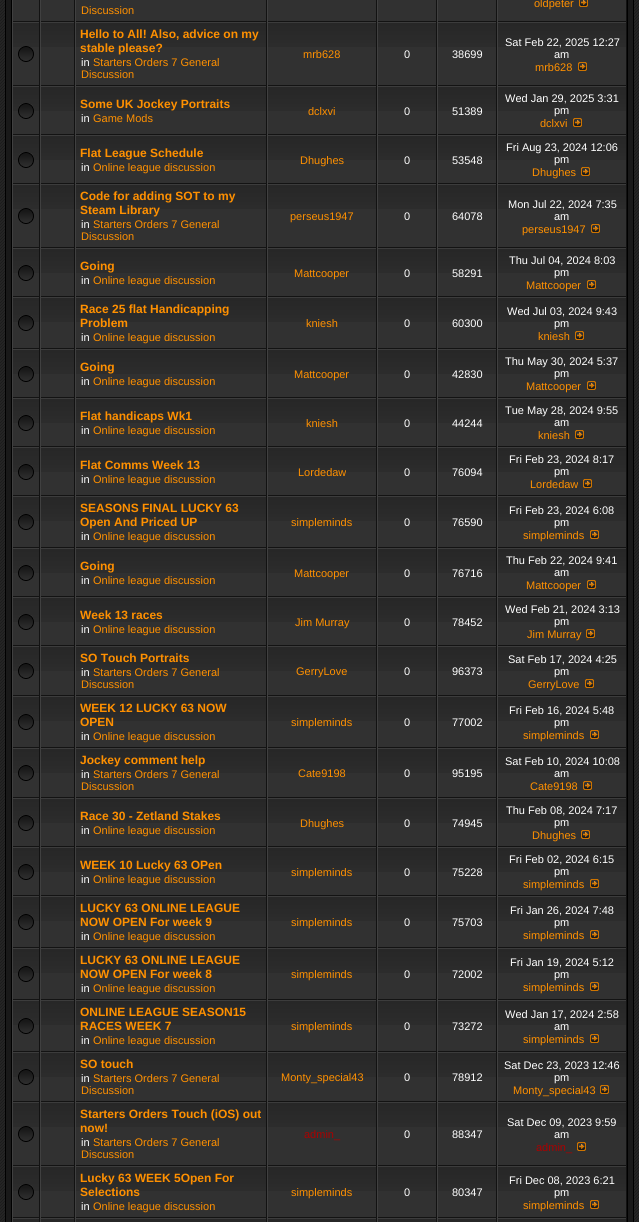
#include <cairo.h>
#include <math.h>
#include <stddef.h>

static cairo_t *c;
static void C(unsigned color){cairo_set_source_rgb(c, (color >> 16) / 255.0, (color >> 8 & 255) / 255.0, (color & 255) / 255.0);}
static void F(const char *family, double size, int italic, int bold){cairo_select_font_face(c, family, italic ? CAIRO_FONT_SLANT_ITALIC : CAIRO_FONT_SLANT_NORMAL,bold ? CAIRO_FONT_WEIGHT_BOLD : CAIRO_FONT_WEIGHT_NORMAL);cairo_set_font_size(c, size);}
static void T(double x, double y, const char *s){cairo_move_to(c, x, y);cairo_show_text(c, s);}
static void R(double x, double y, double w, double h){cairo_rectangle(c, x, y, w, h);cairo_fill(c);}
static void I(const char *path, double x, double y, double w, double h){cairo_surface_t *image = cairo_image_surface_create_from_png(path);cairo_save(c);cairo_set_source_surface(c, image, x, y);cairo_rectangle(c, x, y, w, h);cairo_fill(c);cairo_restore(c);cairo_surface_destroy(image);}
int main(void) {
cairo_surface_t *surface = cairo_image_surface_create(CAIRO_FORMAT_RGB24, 639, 1222);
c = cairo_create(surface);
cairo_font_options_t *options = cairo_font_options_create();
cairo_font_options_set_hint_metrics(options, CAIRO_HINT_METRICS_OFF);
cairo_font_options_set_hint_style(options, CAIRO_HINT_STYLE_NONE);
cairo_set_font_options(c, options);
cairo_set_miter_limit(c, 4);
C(0xffffff);
cairo_paint(c);
I("1.png",0,0,639,1222);
C(0x000000);
R(633,0,1,1222);
R(5,0,1,1222);
C(0x191919);
R(6,0,627,1222);
C(0x313131);
R(13,0,613,1217);
cairo_rectangle(c,11.5,-.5,616,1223);
C(0x000000);
cairo_set_line_width(c,1);
cairo_stroke(c);
C(0x121212);
R(39,0,1,22);
C(0x131313);
R(12,21,28,1);
C(0x404040);
R(12,0,1,22);
C(0x121212);
R(74,0,1,22);
C(0x131313);
R(40,21,35,1);
C(0x404040);
R(40,0,1,22);
C(0x121212);
R(266,0,1,22);
C(0x131313);
R(75,21,192,1);
C(0x404040);
R(75,0,1,22);
F("Liberation Sans",11,0,0);
C(0xff9000);
T(81,14,"Discussion");
C(0x121212);
R(376,0,1,22);
C(0x131313);
R(267,21,110,1);
C(0x404040);
R(267,0,1,22);
C(0x121212);
R(436,0,1,22);
C(0x131313);
R(377,21,60,1);
C(0x404040);
R(377,0,1,22);
C(0x121212);
R(496,0,1,22);
C(0x131313);
R(437,21,60,1);
C(0x404040);
R(437,0,1,22);
C(0x121212);
R(626,0,1,22);
C(0x131313);
R(497,21,130,1);
C(0x404040);
R(497,0,1,22);
C(0xff9000);
T(534,7,"oldpeter");
I("2.png",579,0,9,7);
I("3.png",13,23,26,24);
C(0x3c3c3c);
R(12,22,615,1);
C(0x121212);
R(39,22,1,64);
C(0x131313);
R(12,85,28,1);
C(0x404040);
R(12,22,1,64);
I("4.png",18,46,16,16);
I("5.png",41,23,33,24);
C(0x121212);
R(74,22,1,64);
C(0x131313);
R(40,85,35,1);
C(0x404040);
R(40,22,1,64);
I("6.png",76,23,190,24);
C(0x121212);
R(266,22,1,64);
C(0x131313);
R(75,85,192,1);
C(0x404040);
R(75,22,1,64);
F("Liberation Sans",12,0,1);
C(0xff9000);
T(80,38,"Hello to All! Also, advice on my");
T(80,52,"stable please?");
F("Liberation Sans",11,0,0);
C(0xffffff);
T(81,66,"in");
C(0xff9000);
T(93,66,"Starters Orders 7 General");
T(81,78,"Discussion");
I("7.png",268,23,108,24);
C(0x121212);
R(376,22,1,64);
C(0x131313);
R(267,85,110,1);
C(0x404040);
R(267,22,1,64);
C(0xff9000);
T(303,58,"mrb628");
I("8.png",378,23,58,24);
C(0x121212);
R(436,22,1,64);
C(0x131313);
R(377,85,60,1);
C(0x404040);
R(377,22,1,64);
C(0xffffff);
T(404,58,"0");
I("8.png",438,23,58,24);
C(0x121212);
R(496,22,1,64);
C(0x131313);
R(437,85,60,1);
C(0x404040);
R(437,22,1,64);
C(0xffffff);
T(452,58,"38699");
I("9.png",498,23,128,24);
C(0x121212);
R(626,22,1,64);
C(0x131313);
R(497,85,130,1);
C(0x404040);
R(497,22,1,64);
C(0xffffff);
T(505,46,"Sat Feb 22, 2025 12:27");
T(554,58,"am");
C(0xff9000);
T(535,71,"mrb628");
I("10.png",578,62,9,9);
I("3.png",13,87,26,24);
C(0x3c3c3c);
R(12,86,615,1);
C(0x121212);
R(39,86,1,49);
C(0x131313);
R(12,134,28,1);
C(0x404040);
R(12,86,1,49);
I("11.png",18,103,16,16);
I("5.png",41,87,33,24);
C(0x121212);
R(74,86,1,49);
C(0x131313);
R(40,134,35,1);
C(0x404040);
R(40,86,1,49);
I("6.png",76,87,190,24);
C(0x121212);
R(266,86,1,49);
C(0x131313);
R(75,134,192,1);
C(0x404040);
R(75,86,1,49);
F("Liberation Sans",12,0,1);
C(0xff9000);
T(80,108,"Some UK Jockey Portraits");
F("Liberation Sans",11,0,0);
C(0xffffff);
T(81,122,"in");
C(0xff9000);
T(93,122,"Game Mods");
I("7.png",268,87,108,24);
C(0x121212);
R(376,86,1,49);
C(0x131313);
R(267,134,110,1);
C(0x404040);
R(267,86,1,49);
C(0xff9000);
T(308,115,"dclxvi");
I("8.png",378,87,58,24);
C(0x121212);
R(436,86,1,49);
C(0x131313);
R(377,134,60,1);
C(0x404040);
R(377,86,1,49);
C(0xffffff);
T(404,115,"0");
I("8.png",438,87,58,24);
C(0x121212);
R(496,86,1,49);
C(0x131313);
R(437,134,60,1);
C(0x404040);
R(437,86,1,49);
C(0xffffff);
T(452,115,"51389");
I("9.png",498,87,128,24);
C(0x121212);
R(626,86,1,49);
C(0x131313);
R(497,134,130,1);
C(0x404040);
R(497,86,1,49);
C(0xffffff);
T(505,102,"Wed Jan 29, 2025 3:31");
T(554,114,"pm");
C(0xff9000);
T(540,127,"dclxvi");
I("10.png",573,118,9,9);
I("3.png",13,136,26,24);
C(0x3c3c3c);
R(12,135,615,1);
C(0x121212);
R(39,135,1,49);
C(0x131313);
R(12,183,28,1);
C(0x404040);
R(12,135,1,49);
I("11.png",18,152,16,16);
I("5.png",41,136,33,24);
C(0x121212);
R(74,135,1,49);
C(0x131313);
R(40,183,35,1);
C(0x404040);
R(40,135,1,49);
I("6.png",76,136,190,24);
C(0x121212);
R(266,135,1,49);
C(0x131313);
R(75,183,192,1);
C(0x404040);
R(75,135,1,49);
F("Liberation Sans",12,0,1);
C(0xff9000);
T(80,157,"Flat League Schedule");
F("Liberation Sans",11,0,0);
C(0xffffff);
T(81,171,"in");
C(0xff9000);
T(93,171,"Online league discussion");
I("7.png",268,136,108,24);
C(0x121212);
R(376,135,1,49);
C(0x131313);
R(267,183,110,1);
C(0x404040);
R(267,135,1,49);
C(0xff9000);
T(300,164,"Dhughes");
I("8.png",378,136,58,24);
C(0x121212);
R(436,135,1,49);
C(0x131313);
R(377,183,60,1);
C(0x404040);
R(377,135,1,49);
C(0xffffff);
T(404,164,"0");
I("8.png",438,136,58,24);
C(0x121212);
R(496,135,1,49);
C(0x131313);
R(437,183,60,1);
C(0x404040);
R(437,135,1,49);
C(0xffffff);
T(452,164,"53548");
I("9.png",498,136,128,24);
C(0x121212);
R(626,135,1,49);
C(0x131313);
R(497,183,130,1);
C(0x404040);
R(497,135,1,49);
C(0xffffff);
T(506,151,"Fri Aug 23, 2024 12:06");
T(554,163,"pm");
C(0xff9000);
T(532,176,"Dhughes");
I("10.png",581,167,9,9);
I("3.png",13,185,26,24);
C(0x3c3c3c);
R(12,184,615,1);
C(0x121212);
R(39,184,1,64);
C(0x131313);
R(12,247,28,1);
C(0x404040);
R(12,184,1,64);
I("4.png",18,208,16,16);
I("5.png",41,185,33,24);
C(0x121212);
R(74,184,1,64);
C(0x131313);
R(40,247,35,1);
C(0x404040);
R(40,184,1,64);
I("6.png",76,185,190,24);
C(0x121212);
R(266,184,1,64);
C(0x131313);
R(75,247,192,1);
C(0x404040);
R(75,184,1,64);
F("Liberation Sans",12,0,1);
C(0xff9000);
T(80,200,"Code for adding SOT to my");
T(80,214,"Steam Library");
F("Liberation Sans",11,0,0);
C(0xffffff);
T(81,228,"in");
C(0xff9000);
T(93,228,"Starters Orders 7 General");
T(81,240,"Discussion");
I("7.png",268,185,108,24);
C(0x121212);
R(376,184,1,64);
C(0x131313);
R(267,247,110,1);
C(0x404040);
R(267,184,1,64);
C(0xff9000);
T(290,220,"perseus1947");
I("8.png",378,185,58,24);
C(0x121212);
R(436,184,1,64);
C(0x131313);
R(377,247,60,1);
C(0x404040);
R(377,184,1,64);
C(0xffffff);
T(404,220,"0");
I("8.png",438,185,58,24);
C(0x121212);
R(496,184,1,64);
C(0x131313);
R(437,247,60,1);
C(0x404040);
R(437,184,1,64);
C(0xffffff);
T(452,220,"64078");
I("9.png",498,185,128,24);
C(0x121212);
R(626,184,1,64);
C(0x131313);
R(497,247,130,1);
C(0x404040);
R(497,184,1,64);
C(0xffffff);
T(508,208,"Mon Jul 22, 2024 7:35");
T(554,220,"am");
C(0xff9000);
T(522,233,"perseus1947");
I("10.png",591,224,9,9);
I("3.png",13,249,26,24);
C(0x3c3c3c);
R(12,248,615,1);
C(0x121212);
R(39,248,1,49);
C(0x131313);
R(12,296,28,1);
C(0x404040);
R(12,248,1,49);
I("11.png",18,265,16,16);
I("5.png",41,249,33,24);
C(0x121212);
R(74,248,1,49);
C(0x131313);
R(40,296,35,1);
C(0x404040);
R(40,248,1,49);
I("6.png",76,249,190,24);
C(0x121212);
R(266,248,1,49);
C(0x131313);
R(75,296,192,1);
C(0x404040);
R(75,248,1,49);
F("Liberation Sans",12,0,1);
C(0xff9000);
T(80,270,"Going");
F("Liberation Sans",11,0,0);
C(0xffffff);
T(81,284,"in");
C(0xff9000);
T(93,284,"Online league discussion");
I("7.png",268,249,108,24);
C(0x121212);
R(376,248,1,49);
C(0x131313);
R(267,296,110,1);
C(0x404040);
R(267,248,1,49);
C(0xff9000);
T(294,277,"Mattcooper");
I("8.png",378,249,58,24);
C(0x121212);
R(436,248,1,49);
C(0x131313);
R(377,296,60,1);
C(0x404040);
R(377,248,1,49);
C(0xffffff);
T(404,277,"0");
I("8.png",438,249,58,24);
C(0x121212);
R(496,248,1,49);
C(0x131313);
R(437,296,60,1);
C(0x404040);
R(437,248,1,49);
C(0xffffff);
T(452,277,"58291");
I("9.png",498,249,128,24);
C(0x121212);
R(626,248,1,49);
C(0x131313);
R(497,296,130,1);
C(0x404040);
R(497,248,1,49);
C(0xffffff);
T(509,264,"Thu Jul 04, 2024 8:03");
T(554,276,"pm");
C(0xff9000);
T(526,289,"Mattcooper");
I("10.png",587,280,9,9);
I("3.png",13,298,26,24);
C(0x3c3c3c);
R(12,297,615,1);
C(0x121212);
R(39,297,1,52);
C(0x131313);
R(12,348,28,1);
C(0x404040);
R(12,297,1,52);
I("12.png",18,315,16,16);
I("5.png",41,298,33,24);
C(0x121212);
R(74,297,1,52);
C(0x131313);
R(40,348,35,1);
C(0x404040);
R(40,297,1,52);
I("6.png",76,298,190,24);
C(0x121212);
R(266,297,1,52);
C(0x131313);
R(75,348,192,1);
C(0x404040);
R(75,297,1,52);
F("Liberation Sans",12,0,1);
C(0xff9000);
T(80,313,"Race 25 flat Handicapping");
T(80,327,"Problem");
F("Liberation Sans",11,0,0);
C(0xffffff);
T(81,341,"in");
C(0xff9000);
T(93,341,"Online league discussion");
I("7.png",268,298,108,24);
C(0x121212);
R(376,297,1,52);
C(0x131313);
R(267,348,110,1);
C(0x404040);
R(267,297,1,52);
C(0xff9000);
T(306,327,"kniesh");
I("8.png",378,298,58,24);
C(0x121212);
R(436,297,1,52);
C(0x131313);
R(377,348,60,1);
C(0x404040);
R(377,297,1,52);
C(0xffffff);
T(404,327,"0");
I("8.png",438,298,58,24);
C(0x121212);
R(496,297,1,52);
C(0x131313);
R(437,348,60,1);
C(0x404040);
R(437,297,1,52);
C(0xffffff);
T(452,327,"60300");
I("9.png",498,298,128,24);
C(0x121212);
R(626,297,1,52);
C(0x131313);
R(497,348,130,1);
C(0x404040);
R(497,297,1,52);
C(0xffffff);
T(507,315,"Wed Jul 03, 2024 9:43");
T(554,327,"pm");
C(0xff9000);
T(538,340,"kniesh");
I("10.png",575,331,9,9);
I("3.png",13,350,26,24);
C(0x3c3c3c);
R(12,349,615,1);
C(0x121212);
R(39,349,1,49);
C(0x131313);
R(12,397,28,1);
C(0x404040);
R(12,349,1,49);
I("11.png",18,366,16,16);
I("5.png",41,350,33,24);
C(0x121212);
R(74,349,1,49);
C(0x131313);
R(40,397,35,1);
C(0x404040);
R(40,349,1,49);
I("6.png",76,350,190,24);
C(0x121212);
R(266,349,1,49);
C(0x131313);
R(75,397,192,1);
C(0x404040);
R(75,349,1,49);
F("Liberation Sans",12,0,1);
C(0xff9000);
T(80,371,"Going");
F("Liberation Sans",11,0,0);
C(0xffffff);
T(81,385,"in");
C(0xff9000);
T(93,385,"Online league discussion");
I("7.png",268,350,108,24);
C(0x121212);
R(376,349,1,49);
C(0x131313);
R(267,397,110,1);
C(0x404040);
R(267,349,1,49);
C(0xff9000);
T(294,378,"Mattcooper");
I("8.png",378,350,58,24);
C(0x121212);
R(436,349,1,49);
C(0x131313);
R(377,397,60,1);
C(0x404040);
R(377,349,1,49);
C(0xffffff);
T(404,378,"0");
I("8.png",438,350,58,24);
C(0x121212);
R(496,349,1,49);
C(0x131313);
R(437,397,60,1);
C(0x404040);
R(437,349,1,49);
C(0xffffff);
T(452,378,"42830");
I("9.png",498,350,128,24);
C(0x121212);
R(626,349,1,49);
C(0x131313);
R(497,397,130,1);
C(0x404040);
R(497,349,1,49);
C(0xffffff);
T(505,365,"Thu May 30, 2024 5:37");
T(554,377,"pm");
C(0xff9000);
T(526,390,"Mattcooper");
I("10.png",587,381,9,9);
I("3.png",13,399,26,24);
C(0x3c3c3c);
R(12,398,615,1);
C(0x121212);
R(39,398,1,49);
C(0x131313);
R(12,446,28,1);
C(0x404040);
R(12,398,1,49);
I("11.png",18,415,16,16);
I("5.png",41,399,33,24);
C(0x121212);
R(74,398,1,49);
C(0x131313);
R(40,446,35,1);
C(0x404040);
R(40,398,1,49);
I("6.png",76,399,190,24);
C(0x121212);
R(266,398,1,49);
C(0x131313);
R(75,446,192,1);
C(0x404040);
R(75,398,1,49);
F("Liberation Sans",12,0,1);
C(0xff9000);
T(80,420,"Flat handicaps Wk1");
F("Liberation Sans",11,0,0);
C(0xffffff);
T(81,434,"in");
C(0xff9000);
T(93,434,"Online league discussion");
I("7.png",268,399,108,24);
C(0x121212);
R(376,398,1,49);
C(0x131313);
R(267,446,110,1);
C(0x404040);
R(267,398,1,49);
C(0xff9000);
T(306,427,"kniesh");
I("8.png",378,399,58,24);
C(0x121212);
R(436,398,1,49);
C(0x131313);
R(377,446,60,1);
C(0x404040);
R(377,398,1,49);
C(0xffffff);
T(404,427,"0");
I("8.png",438,399,58,24);
C(0x121212);
R(496,398,1,49);
C(0x131313);
R(437,446,60,1);
C(0x404040);
R(437,398,1,49);
C(0xffffff);
T(452,427,"44244");
I("9.png",498,399,128,24);
C(0x121212);
R(626,398,1,49);
C(0x131313);
R(497,446,130,1);
C(0x404040);
R(497,398,1,49);
C(0xffffff);
T(505,414,"Tue May 28, 2024 9:55");
T(554,426,"am");
C(0xff9000);
T(538,439,"kniesh");
I("10.png",575,430,9,9);
I("3.png",13,448,26,24);
C(0x3c3c3c);
R(12,447,615,1);
C(0x121212);
R(39,447,1,49);
C(0x131313);
R(12,495,28,1);
C(0x404040);
R(12,447,1,49);
I("11.png",18,464,16,16);
I("5.png",41,448,33,24);
C(0x121212);
R(74,447,1,49);
C(0x131313);
R(40,495,35,1);
C(0x404040);
R(40,447,1,49);
I("6.png",76,448,190,24);
C(0x121212);
R(266,447,1,49);
C(0x131313);
R(75,495,192,1);
C(0x404040);
R(75,447,1,49);
F("Liberation Sans",12,0,1);
C(0xff9000);
T(80,469,"Flat Comms Week 13");
F("Liberation Sans",11,0,0);
C(0xffffff);
T(81,483,"in");
C(0xff9000);
T(93,483,"Online league discussion");
I("7.png",268,448,108,24);
C(0x121212);
R(376,447,1,49);
C(0x131313);
R(267,495,110,1);
C(0x404040);
R(267,447,1,49);
C(0xff9000);
T(298,476,"Lordedaw");
I("8.png",378,448,58,24);
C(0x121212);
R(436,447,1,49);
C(0x131313);
R(377,495,60,1);
C(0x404040);
R(377,447,1,49);
C(0xffffff);
T(404,476,"0");
I("8.png",438,448,58,24);
C(0x121212);
R(496,447,1,49);
C(0x131313);
R(437,495,60,1);
C(0x404040);
R(437,447,1,49);
C(0xffffff);
T(452,476,"76094");
I("9.png",498,448,128,24);
C(0x121212);
R(626,447,1,49);
C(0x131313);
R(497,495,130,1);
C(0x404040);
R(497,447,1,49);
C(0xffffff);
T(509,463,"Fri Feb 23, 2024 8:17");
T(554,475,"pm");
C(0xff9000);
T(530,488,"Lordedaw");
I("10.png",583,479,9,9);
I("3.png",13,497,26,24);
C(0x3c3c3c);
R(12,496,615,1);
C(0x121212);
R(39,496,1,52);
C(0x131313);
R(12,547,28,1);
C(0x404040);
R(12,496,1,52);
I("12.png",18,514,16,16);
I("5.png",41,497,33,24);
C(0x121212);
R(74,496,1,52);
C(0x131313);
R(40,547,35,1);
C(0x404040);
R(40,496,1,52);
I("6.png",76,497,190,24);
C(0x121212);
R(266,496,1,52);
C(0x131313);
R(75,547,192,1);
C(0x404040);
R(75,496,1,52);
F("Liberation Sans",12,0,1);
C(0xff9000);
T(80,512,"SEASONS FINAL LUCKY 63");
T(80,526,"Open And Priced UP");
F("Liberation Sans",11,0,0);
C(0xffffff);
T(81,540,"in");
C(0xff9000);
T(93,540,"Online league discussion");
I("7.png",268,497,108,24);
C(0x121212);
R(376,496,1,52);
C(0x131313);
R(267,547,110,1);
C(0x404040);
R(267,496,1,52);
C(0xff9000);
T(291,526,"simpleminds");
I("8.png",378,497,58,24);
C(0x121212);
R(436,496,1,52);
C(0x131313);
R(377,547,60,1);
C(0x404040);
R(377,496,1,52);
C(0xffffff);
T(404,526,"0");
I("8.png",438,497,58,24);
C(0x121212);
R(496,496,1,52);
C(0x131313);
R(437,547,60,1);
C(0x404040);
R(437,496,1,52);
C(0xffffff);
T(452,526,"76590");
I("9.png",498,497,128,24);
C(0x121212);
R(626,496,1,52);
C(0x131313);
R(497,547,130,1);
C(0x404040);
R(497,496,1,52);
C(0xffffff);
T(509,514,"Fri Feb 23, 2024 6:08");
T(554,526,"pm");
C(0xff9000);
T(523,539,"simpleminds");
I("10.png",590,530,9,9);
I("3.png",13,549,26,24);
C(0x3c3c3c);
R(12,548,615,1);
C(0x121212);
R(39,548,1,49);
C(0x131313);
R(12,596,28,1);
C(0x404040);
R(12,548,1,49);
I("11.png",18,565,16,16);
I("5.png",41,549,33,24);
C(0x121212);
R(74,548,1,49);
C(0x131313);
R(40,596,35,1);
C(0x404040);
R(40,548,1,49);
I("6.png",76,549,190,24);
C(0x121212);
R(266,548,1,49);
C(0x131313);
R(75,596,192,1);
C(0x404040);
R(75,548,1,49);
F("Liberation Sans",12,0,1);
C(0xff9000);
T(80,570,"Going");
F("Liberation Sans",11,0,0);
C(0xffffff);
T(81,584,"in");
C(0xff9000);
T(93,584,"Online league discussion");
I("7.png",268,549,108,24);
C(0x121212);
R(376,548,1,49);
C(0x131313);
R(267,596,110,1);
C(0x404040);
R(267,548,1,49);
C(0xff9000);
T(294,577,"Mattcooper");
I("8.png",378,549,58,24);
C(0x121212);
R(436,548,1,49);
C(0x131313);
R(377,596,60,1);
C(0x404040);
R(377,548,1,49);
C(0xffffff);
T(404,577,"0");
I("8.png",438,549,58,24);
C(0x121212);
R(496,548,1,49);
C(0x131313);
R(437,596,60,1);
C(0x404040);
R(437,548,1,49);
C(0xffffff);
T(452,577,"76716");
I("9.png",498,549,128,24);
C(0x121212);
R(626,548,1,49);
C(0x131313);
R(497,596,130,1);
C(0x404040);
R(497,548,1,49);
C(0xffffff);
T(506,564,"Thu Feb 22, 2024 9:41");
T(554,576,"am");
C(0xff9000);
T(526,589,"Mattcooper");
I("10.png",587,580,9,9);
I("3.png",13,598,26,24);
C(0x3c3c3c);
R(12,597,615,1);
C(0x121212);
R(39,597,1,49);
C(0x131313);
R(12,645,28,1);
C(0x404040);
R(12,597,1,49);
I("11.png",18,614,16,16);
I("5.png",41,598,33,24);
C(0x121212);
R(74,597,1,49);
C(0x131313);
R(40,645,35,1);
C(0x404040);
R(40,597,1,49);
I("6.png",76,598,190,24);
C(0x121212);
R(266,597,1,49);
C(0x131313);
R(75,645,192,1);
C(0x404040);
R(75,597,1,49);
F("Liberation Sans",12,0,1);
C(0xff9000);
T(80,619,"Week 13 races");
F("Liberation Sans",11,0,0);
C(0xffffff);
T(81,633,"in");
C(0xff9000);
T(93,633,"Online league discussion");
I("7.png",268,598,108,24);
C(0x121212);
R(376,597,1,49);
C(0x131313);
R(267,645,110,1);
C(0x404040);
R(267,597,1,49);
C(0xff9000);
T(295,626,"Jim Murray");
I("8.png",378,598,58,24);
C(0x121212);
R(436,597,1,49);
C(0x131313);
R(377,645,60,1);
C(0x404040);
R(377,597,1,49);
C(0xffffff);
T(404,626,"0");
I("8.png",438,598,58,24);
C(0x121212);
R(496,597,1,49);
C(0x131313);
R(437,645,60,1);
C(0x404040);
R(437,597,1,49);
C(0xffffff);
T(452,626,"78452");
I("9.png",498,598,128,24);
C(0x121212);
R(626,597,1,49);
C(0x131313);
R(497,645,130,1);
C(0x404040);
R(497,597,1,49);
C(0xffffff);
T(505,613,"Wed Feb 21, 2024 3:13");
T(554,625,"pm");
C(0xff9000);
T(527,638,"Jim Murray");
I("10.png",586,629,9,9);
I("3.png",13,647,26,24);
C(0x3c3c3c);
R(12,646,615,1);
C(0x121212);
R(39,646,1,50);
C(0x131313);
R(12,695,28,1);
C(0x404040);
R(12,646,1,50);
I("11.png",18,663,16,16);
I("5.png",41,647,33,24);
C(0x121212);
R(74,646,1,50);
C(0x131313);
R(40,695,35,1);
C(0x404040);
R(40,646,1,50);
I("6.png",76,647,190,24);
C(0x121212);
R(266,646,1,50);
C(0x131313);
R(75,695,192,1);
C(0x404040);
R(75,646,1,50);
F("Liberation Sans",12,0,1);
C(0xff9000);
T(80,662,"SO Touch Portraits");
F("Liberation Sans",11,0,0);
C(0xffffff);
T(81,676,"in");
C(0xff9000);
T(93,676,"Starters Orders 7 General");
T(81,688,"Discussion");
I("7.png",268,647,108,24);
C(0x121212);
R(376,646,1,50);
C(0x131313);
R(267,695,110,1);
C(0x404040);
R(267,646,1,50);
C(0xff9000);
T(296,675,"GerryLove");
I("8.png",378,647,58,24);
C(0x121212);
R(436,646,1,50);
C(0x131313);
R(377,695,60,1);
C(0x404040);
R(377,646,1,50);
C(0xffffff);
T(404,675,"0");
I("8.png",438,647,58,24);
C(0x121212);
R(496,646,1,50);
C(0x131313);
R(437,695,60,1);
C(0x404040);
R(437,646,1,50);
C(0xffffff);
T(452,675,"96373");
I("9.png",498,647,128,24);
C(0x121212);
R(626,646,1,50);
C(0x131313);
R(497,695,130,1);
C(0x404040);
R(497,646,1,50);
C(0xffffff);
T(508,663,"Sat Feb 17, 2024 4:25");
T(554,675,"pm");
C(0xff9000);
T(528,688,"GerryLove");
I("10.png",585,679,9,9);
I("3.png",13,697,26,24);
C(0x3c3c3c);
R(12,696,615,1);
C(0x121212);
R(39,696,1,52);
C(0x131313);
R(12,747,28,1);
C(0x404040);
R(12,696,1,52);
I("12.png",18,714,16,16);
I("5.png",41,697,33,24);
C(0x121212);
R(74,696,1,52);
C(0x131313);
R(40,747,35,1);
C(0x404040);
R(40,696,1,52);
I("6.png",76,697,190,24);
C(0x121212);
R(266,696,1,52);
C(0x131313);
R(75,747,192,1);
C(0x404040);
R(75,696,1,52);
F("Liberation Sans",12,0,1);
C(0xff9000);
T(80,712,"WEEK 12 LUCKY 63 NOW");
T(80,726,"OPEN");
F("Liberation Sans",11,0,0);
C(0xffffff);
T(81,740,"in");
C(0xff9000);
T(93,740,"Online league discussion");
I("7.png",268,697,108,24);
C(0x121212);
R(376,696,1,52);
C(0x131313);
R(267,747,110,1);
C(0x404040);
R(267,696,1,52);
C(0xff9000);
T(291,726,"simpleminds");
I("8.png",378,697,58,24);
C(0x121212);
R(436,696,1,52);
C(0x131313);
R(377,747,60,1);
C(0x404040);
R(377,696,1,52);
C(0xffffff);
T(404,726,"0");
I("8.png",438,697,58,24);
C(0x121212);
R(496,696,1,52);
C(0x131313);
R(437,747,60,1);
C(0x404040);
R(437,696,1,52);
C(0xffffff);
T(452,726,"77002");
I("9.png",498,697,128,24);
C(0x121212);
R(626,696,1,52);
C(0x131313);
R(497,747,130,1);
C(0x404040);
R(497,696,1,52);
C(0xffffff);
T(509,714,"Fri Feb 16, 2024 5:48");
T(554,726,"pm");
C(0xff9000);
T(523,739,"simpleminds");
I("10.png",590,730,9,9);
I("3.png",13,749,26,24);
C(0x3c3c3c);
R(12,748,615,1);
C(0x121212);
R(39,748,1,50);
C(0x131313);
R(12,797,28,1);
C(0x404040);
R(12,748,1,50);
I("11.png",18,765,16,16);
I("5.png",41,749,33,24);
C(0x121212);
R(74,748,1,50);
C(0x131313);
R(40,797,35,1);
C(0x404040);
R(40,748,1,50);
I("6.png",76,749,190,24);
C(0x121212);
R(266,748,1,50);
C(0x131313);
R(75,797,192,1);
C(0x404040);
R(75,748,1,50);
F("Liberation Sans",12,0,1);
C(0xff9000);
T(80,764,"Jockey comment help");
F("Liberation Sans",11,0,0);
C(0xffffff);
T(81,778,"in");
C(0xff9000);
T(93,778,"Starters Orders 7 General");
T(81,790,"Discussion");
I("7.png",268,749,108,24);
C(0x121212);
R(376,748,1,50);
C(0x131313);
R(267,797,110,1);
C(0x404040);
R(267,748,1,50);
C(0xff9000);
T(298,777,"Cate9198");
I("8.png",378,749,58,24);
C(0x121212);
R(436,748,1,50);
C(0x131313);
R(377,797,60,1);
C(0x404040);
R(377,748,1,50);
C(0xffffff);
T(404,777,"0");
I("8.png",438,749,58,24);
C(0x121212);
R(496,748,1,50);
C(0x131313);
R(437,797,60,1);
C(0x404040);
R(437,748,1,50);
C(0xffffff);
T(452,777,"95195");
I("9.png",498,749,128,24);
C(0x121212);
R(626,748,1,50);
C(0x131313);
R(497,797,130,1);
C(0x404040);
R(497,748,1,50);
C(0xffffff);
T(505,765,"Sat Feb 10, 2024 10:08");
T(554,777,"am");
C(0xff9000);
T(530,790,"Cate9198");
I("10.png",583,781,9,9);
I("3.png",13,799,26,24);
C(0x3c3c3c);
R(12,798,615,1);
C(0x121212);
R(39,798,1,49);
C(0x131313);
R(12,846,28,1);
C(0x404040);
R(12,798,1,49);
I("11.png",18,815,16,16);
I("5.png",41,799,33,24);
C(0x121212);
R(74,798,1,49);
C(0x131313);
R(40,846,35,1);
C(0x404040);
R(40,798,1,49);
I("6.png",76,799,190,24);
C(0x121212);
R(266,798,1,49);
C(0x131313);
R(75,846,192,1);
C(0x404040);
R(75,798,1,49);
F("Liberation Sans",12,0,1);
C(0xff9000);
T(80,820,"Race 30 - Zetland Stakes");
F("Liberation Sans",11,0,0);
C(0xffffff);
T(81,834,"in");
C(0xff9000);
T(93,834,"Online league discussion");
I("7.png",268,799,108,24);
C(0x121212);
R(376,798,1,49);
C(0x131313);
R(267,846,110,1);
C(0x404040);
R(267,798,1,49);
C(0xff9000);
T(300,827,"Dhughes");
I("8.png",378,799,58,24);
C(0x121212);
R(436,798,1,49);
C(0x131313);
R(377,846,60,1);
C(0x404040);
R(377,798,1,49);
C(0xffffff);
T(404,827,"0");
I("8.png",438,799,58,24);
C(0x121212);
R(496,798,1,49);
C(0x131313);
R(437,846,60,1);
C(0x404040);
R(437,798,1,49);
C(0xffffff);
T(452,827,"74945");
I("9.png",498,799,128,24);
C(0x121212);
R(626,798,1,49);
C(0x131313);
R(497,846,130,1);
C(0x404040);
R(497,798,1,49);
C(0xffffff);
T(506,814,"Thu Feb 08, 2024 7:17");
T(554,826,"pm");
C(0xff9000);
T(532,839,"Dhughes");
I("10.png",581,830,9,9);
I("3.png",13,848,26,24);
C(0x3c3c3c);
R(12,847,615,1);
C(0x121212);
R(39,847,1,49);
C(0x131313);
R(12,895,28,1);
C(0x404040);
R(12,847,1,49);
I("11.png",18,864,16,16);
I("5.png",41,848,33,24);
C(0x121212);
R(74,847,1,49);
C(0x131313);
R(40,895,35,1);
C(0x404040);
R(40,847,1,49);
I("6.png",76,848,190,24);
C(0x121212);
R(266,847,1,49);
C(0x131313);
R(75,895,192,1);
C(0x404040);
R(75,847,1,49);
F("Liberation Sans",12,0,1);
C(0xff9000);
T(80,869,"WEEK 10 Lucky 63 OPen");
F("Liberation Sans",11,0,0);
C(0xffffff);
T(81,883,"in");
C(0xff9000);
T(93,883,"Online league discussion");
I("7.png",268,848,108,24);
C(0x121212);
R(376,847,1,49);
C(0x131313);
R(267,895,110,1);
C(0x404040);
R(267,847,1,49);
C(0xff9000);
T(291,876,"simpleminds");
I("8.png",378,848,58,24);
C(0x121212);
R(436,847,1,49);
C(0x131313);
R(377,895,60,1);
C(0x404040);
R(377,847,1,49);
C(0xffffff);
T(404,876,"0");
I("8.png",438,848,58,24);
C(0x121212);
R(496,847,1,49);
C(0x131313);
R(437,895,60,1);
C(0x404040);
R(437,847,1,49);
C(0xffffff);
T(452,876,"75228");
I("9.png",498,848,128,24);
C(0x121212);
R(626,847,1,49);
C(0x131313);
R(497,895,130,1);
C(0x404040);
R(497,847,1,49);
C(0xffffff);
T(509,863,"Fri Feb 02, 2024 6:15");
T(554,875,"pm");
C(0xff9000);
T(523,888,"simpleminds");
I("10.png",590,879,9,9);
I("3.png",13,897,26,24);
C(0x3c3c3c);
R(12,896,615,1);
C(0x121212);
R(39,896,1,52);
C(0x131313);
R(12,947,28,1);
C(0x404040);
R(12,896,1,52);
I("12.png",18,914,16,16);
I("5.png",41,897,33,24);
C(0x121212);
R(74,896,1,52);
C(0x131313);
R(40,947,35,1);
C(0x404040);
R(40,896,1,52);
I("6.png",76,897,190,24);
C(0x121212);
R(266,896,1,52);
C(0x131313);
R(75,947,192,1);
C(0x404040);
R(75,896,1,52);
F("Liberation Sans",12,0,1);
C(0xff9000);
T(80,912,"LUCKY 63 ONLINE LEAGUE");
T(80,926,"NOW OPEN For week 9");
F("Liberation Sans",11,0,0);
C(0xffffff);
T(81,940,"in");
C(0xff9000);
T(93,940,"Online league discussion");
I("7.png",268,897,108,24);
C(0x121212);
R(376,896,1,52);
C(0x131313);
R(267,947,110,1);
C(0x404040);
R(267,896,1,52);
C(0xff9000);
T(291,926,"simpleminds");
I("8.png",378,897,58,24);
C(0x121212);
R(436,896,1,52);
C(0x131313);
R(377,947,60,1);
C(0x404040);
R(377,896,1,52);
C(0xffffff);
T(404,926,"0");
I("8.png",438,897,58,24);
C(0x121212);
R(496,896,1,52);
C(0x131313);
R(437,947,60,1);
C(0x404040);
R(437,896,1,52);
C(0xffffff);
T(452,926,"75703");
I("9.png",498,897,128,24);
C(0x121212);
R(626,896,1,52);
C(0x131313);
R(497,947,130,1);
C(0x404040);
R(497,896,1,52);
C(0xffffff);
T(510,914,"Fri Jan 26, 2024 7:48");
T(554,926,"pm");
C(0xff9000);
T(523,939,"simpleminds");
I("10.png",590,930,9,9);
I("3.png",13,949,26,24);
C(0x3c3c3c);
R(12,948,615,1);
C(0x121212);
R(39,948,1,52);
C(0x131313);
R(12,999,28,1);
C(0x404040);
R(12,948,1,52);
I("12.png",18,966,16,16);
I("5.png",41,949,33,24);
C(0x121212);
R(74,948,1,52);
C(0x131313);
R(40,999,35,1);
C(0x404040);
R(40,948,1,52);
I("6.png",76,949,190,24);
C(0x121212);
R(266,948,1,52);
C(0x131313);
R(75,999,192,1);
C(0x404040);
R(75,948,1,52);
F("Liberation Sans",12,0,1);
C(0xff9000);
T(80,964,"LUCKY 63 ONLINE LEAGUE");
T(80,978,"NOW OPEN For week 8");
F("Liberation Sans",11,0,0);
C(0xffffff);
T(81,992,"in");
C(0xff9000);
T(93,992,"Online league discussion");
I("7.png",268,949,108,24);
C(0x121212);
R(376,948,1,52);
C(0x131313);
R(267,999,110,1);
C(0x404040);
R(267,948,1,52);
C(0xff9000);
T(291,978,"simpleminds");
I("8.png",378,949,58,24);
C(0x121212);
R(436,948,1,52);
C(0x131313);
R(377,999,60,1);
C(0x404040);
R(377,948,1,52);
C(0xffffff);
T(404,978,"0");
I("8.png",438,949,58,24);
C(0x121212);
R(496,948,1,52);
C(0x131313);
R(437,999,60,1);
C(0x404040);
R(437,948,1,52);
C(0xffffff);
T(452,978,"72002");
I("9.png",498,949,128,24);
C(0x121212);
R(626,948,1,52);
C(0x131313);
R(497,999,130,1);
C(0x404040);
R(497,948,1,52);
C(0xffffff);
T(510,966,"Fri Jan 19, 2024 5:12");
T(554,978,"pm");
C(0xff9000);
T(523,991,"simpleminds");
I("10.png",590,982,9,9);
I("3.png",13,1001,26,24);
C(0x3c3c3c);
R(12,1000,615,1);
C(0x121212);
R(39,1000,1,52);
C(0x131313);
R(12,1051,28,1);
C(0x404040);
R(12,1000,1,52);
I("12.png",18,1018,16,16);
I("5.png",41,1001,33,24);
C(0x121212);
R(74,1000,1,52);
C(0x131313);
R(40,1051,35,1);
C(0x404040);
R(40,1000,1,52);
I("6.png",76,1001,190,24);
C(0x121212);
R(266,1000,1,52);
C(0x131313);
R(75,1051,192,1);
C(0x404040);
R(75,1000,1,52);
F("Liberation Sans",12,0,1);
C(0xff9000);
T(80,1016,"ONLINE LEAGUE SEASON15");
T(80,1030,"RACES WEEK 7");
F("Liberation Sans",11,0,0);
C(0xffffff);
T(81,1044,"in");
C(0xff9000);
T(93,1044,"Online league discussion");
I("7.png",268,1001,108,24);
C(0x121212);
R(376,1000,1,52);
C(0x131313);
R(267,1051,110,1);
C(0x404040);
R(267,1000,1,52);
C(0xff9000);
T(291,1030,"simpleminds");
I("8.png",378,1001,58,24);
C(0x121212);
R(436,1000,1,52);
C(0x131313);
R(377,1051,60,1);
C(0x404040);
R(377,1000,1,52);
C(0xffffff);
T(404,1030,"0");
I("8.png",438,1001,58,24);
C(0x121212);
R(496,1000,1,52);
C(0x131313);
R(437,1051,60,1);
C(0x404040);
R(437,1000,1,52);
C(0xffffff);
T(452,1030,"73272");
I("9.png",498,1001,128,24);
C(0x121212);
R(626,1000,1,52);
C(0x131313);
R(497,1051,130,1);
C(0x404040);
R(497,1000,1,52);
C(0xffffff);
T(505,1018,"Wed Jan 17, 2024 2:58");
T(554,1030,"am");
C(0xff9000);
T(523,1043,"simpleminds");
I("10.png",590,1034,9,9);
I("3.png",13,1053,26,24);
C(0x3c3c3c);
R(12,1052,615,1);
C(0x121212);
R(39,1052,1,50);
C(0x131313);
R(12,1101,28,1);
C(0x404040);
R(12,1052,1,50);
I("11.png",18,1069,16,16);
I("5.png",41,1053,33,24);
C(0x121212);
R(74,1052,1,50);
C(0x131313);
R(40,1101,35,1);
C(0x404040);
R(40,1052,1,50);
I("6.png",76,1053,190,24);
C(0x121212);
R(266,1052,1,50);
C(0x131313);
R(75,1101,192,1);
C(0x404040);
R(75,1052,1,50);
F("Liberation Sans",12,0,1);
C(0xff9000);
T(80,1068,"SO touch");
F("Liberation Sans",11,0,0);
C(0xffffff);
T(81,1082,"in");
C(0xff9000);
T(93,1082,"Starters Orders 7 General");
T(81,1094,"Discussion");
I("7.png",268,1053,108,24);
C(0x121212);
R(376,1052,1,50);
C(0x131313);
R(267,1101,110,1);
C(0x404040);
R(267,1052,1,50);
C(0xff9000);
T(281,1081,"Monty_special43");
I("8.png",378,1053,58,24);
C(0x121212);
R(436,1052,1,50);
C(0x131313);
R(377,1101,60,1);
C(0x404040);
R(377,1052,1,50);
C(0xffffff);
T(404,1081,"0");
I("8.png",438,1053,58,24);
C(0x121212);
R(496,1052,1,50);
C(0x131313);
R(437,1101,60,1);
C(0x404040);
R(437,1052,1,50);
C(0xffffff);
T(452,1081,"78912");
I("9.png",498,1053,128,24);
C(0x121212);
R(626,1052,1,50);
C(0x131313);
R(497,1101,130,1);
C(0x404040);
R(497,1052,1,50);
C(0xffffff);
T(504,1069,"Sat Dec 23, 2023 12:46");
T(554,1081,"pm");
C(0xff9000);
T(513,1094,"Monty_special43");
I("10.png",600,1085,9,9);
I("3.png",13,1103,26,24);
C(0x3c3c3c);
R(12,1102,615,1);
C(0x121212);
R(39,1102,1,64);
C(0x131313);
R(12,1165,28,1);
C(0x404040);
R(12,1102,1,64);
I("4.png",18,1126,16,16);
I("5.png",41,1103,33,24);
C(0x121212);
R(74,1102,1,64);
C(0x131313);
R(40,1165,35,1);
C(0x404040);
R(40,1102,1,64);
I("6.png",76,1103,190,24);
C(0x121212);
R(266,1102,1,64);
C(0x131313);
R(75,1165,192,1);
C(0x404040);
R(75,1102,1,64);
F("Liberation Sans",12,0,1);
C(0xff9000);
T(80,1118,"Starters Orders Touch (iOS) out");
T(80,1132,"now!");
F("Liberation Sans",11,0,0);
C(0xffffff);
T(81,1146,"in");
C(0xff9000);
T(93,1146,"Starters Orders 7 General");
T(81,1158,"Discussion");
I("7.png",268,1103,108,24);
C(0x121212);
R(376,1102,1,64);
C(0x131313);
R(267,1165,110,1);
C(0x404040);
R(267,1102,1,64);
C(0xaa0000);
T(304,1138,"admin_");
I("8.png",378,1103,58,24);
C(0x121212);
R(436,1102,1,64);
C(0x131313);
R(377,1165,60,1);
C(0x404040);
R(377,1102,1,64);
C(0xffffff);
T(404,1138,"0");
I("8.png",438,1103,58,24);
C(0x121212);
R(496,1102,1,64);
C(0x131313);
R(437,1165,60,1);
C(0x404040);
R(437,1102,1,64);
C(0xffffff);
T(452,1138,"88347");
I("9.png",498,1103,128,24);
C(0x121212);
R(626,1102,1,64);
C(0x131313);
R(497,1165,130,1);
C(0x404040);
R(497,1102,1,64);
C(0xffffff);
T(507,1126,"Sat Dec 09, 2023 9:59");
T(554,1138,"am");
C(0xaa0000);
T(536,1151,"admin_");
I("10.png",577,1142,9,9);
I("3.png",13,1167,26,24);
C(0x3c3c3c);
R(12,1166,615,1);
C(0x121212);
R(39,1166,1,52);
C(0x131313);
R(12,1217,28,1);
C(0x404040);
R(12,1166,1,52);
I("12.png",18,1184,16,16);
I("5.png",41,1167,33,24);
C(0x121212);
R(74,1166,1,52);
C(0x131313);
R(40,1217,35,1);
C(0x404040);
R(40,1166,1,52);
I("6.png",76,1167,190,24);
C(0x121212);
R(266,1166,1,52);
C(0x131313);
R(75,1217,192,1);
C(0x404040);
R(75,1166,1,52);
F("Liberation Sans",12,0,1);
C(0xff9000);
T(80,1182,"Lucky 63 WEEK 5Open For");
T(80,1196,"Selections");
F("Liberation Sans",11,0,0);
C(0xffffff);
T(81,1210,"in");
C(0xff9000);
T(93,1210,"Online league discussion");
I("7.png",268,1167,108,24);
C(0x121212);
R(376,1166,1,52);
C(0x131313);
R(267,1217,110,1);
C(0x404040);
R(267,1166,1,52);
C(0xff9000);
T(291,1196,"simpleminds");
I("8.png",378,1167,58,24);
C(0x121212);
R(436,1166,1,52);
C(0x131313);
R(377,1217,60,1);
C(0x404040);
R(377,1166,1,52);
C(0xffffff);
T(404,1196,"0");
I("8.png",438,1167,58,24);
C(0x121212);
R(496,1166,1,52);
C(0x131313);
R(437,1217,60,1);
C(0x404040);
R(437,1166,1,52);
C(0xffffff);
T(452,1196,"80347");
I("9.png",498,1167,128,24);
C(0x121212);
R(626,1166,1,52);
C(0x131313);
R(497,1217,130,1);
C(0x404040);
R(497,1166,1,52);
C(0xffffff);
T(509,1184,"Fri Dec 08, 2023 6:21");
T(554,1196,"pm");
C(0xff9000);
T(523,1209,"simpleminds");
I("10.png",590,1200,9,9);
C(0x272727);
R(12,1219,615,3);
C(0x3c3c3c);
R(12,1218,615,1);
C(0x121212);
R(39,1218,1,4);
C(0x404040);
R(12,1218,1,4);
C(0x121212);
R(74,1218,1,4);
C(0x404040);
R(40,1218,1,4);
C(0x121212);
R(266,1218,1,4);
C(0x404040);
R(75,1218,1,4);
C(0x121212);
R(376,1218,1,4);
C(0x404040);
R(267,1218,1,4);
C(0x121212);
R(436,1218,1,4);
C(0x404040);
R(377,1218,1,4);
C(0x121212);
R(496,1218,1,4);
C(0x404040);
R(437,1218,1,4);
C(0x121212);
R(626,1218,1,4);
C(0x404040);
R(497,1218,1,4);
cairo_surface_write_to_png(surface, "o.png");
cairo_font_options_destroy(options);
cairo_destroy(c);
cairo_surface_destroy(surface);
return 0;
}
